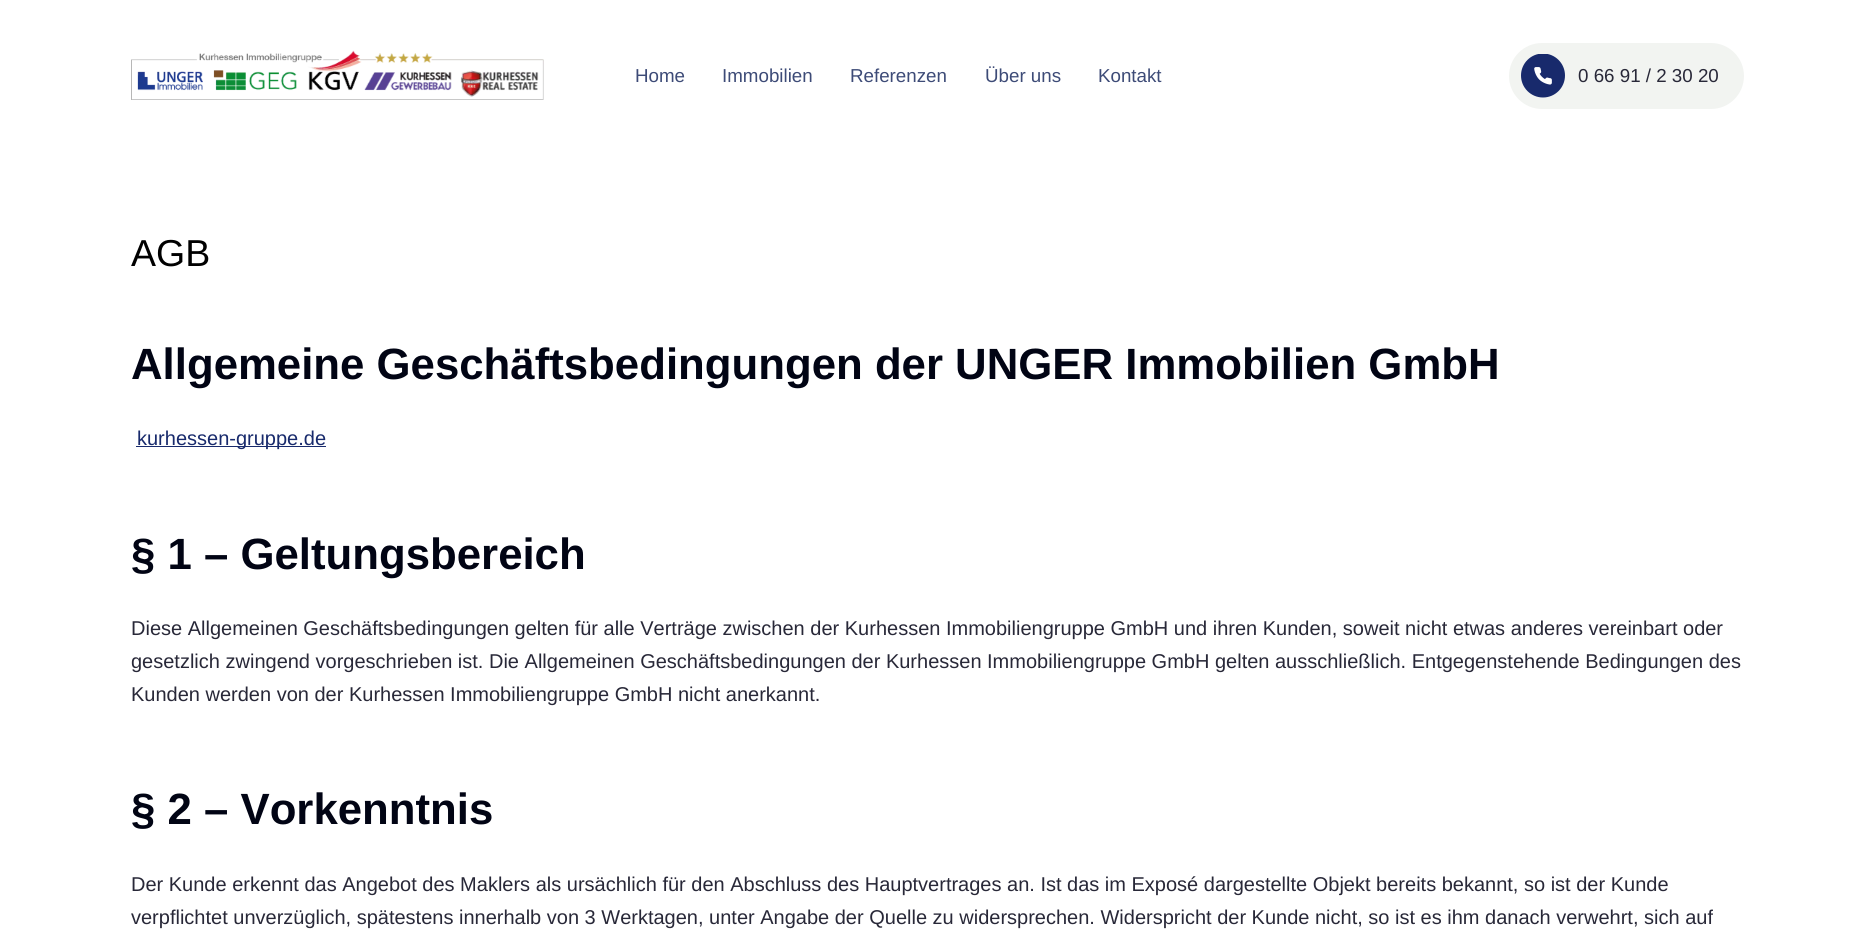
#include <cairo.h>
#include <math.h>
#include <stddef.h>

static cairo_t *c;
static void C(unsigned color){cairo_set_source_rgb(c, (color >> 16) / 255.0, (color >> 8 & 255) / 255.0, (color & 255) / 255.0);}
static void F(const char *family, double size, int italic, int bold){cairo_select_font_face(c, family, italic ? CAIRO_FONT_SLANT_ITALIC : CAIRO_FONT_SLANT_NORMAL,bold ? CAIRO_FONT_WEIGHT_BOLD : CAIRO_FONT_WEIGHT_NORMAL);cairo_set_font_size(c, size);}
static void T(double x, double y, const char *s){cairo_move_to(c, x, y);cairo_show_text(c, s);}
static void R(double x, double y, double w, double h){cairo_rectangle(c, x, y, w, h);cairo_fill(c);}
static void Q(double x, double y, double w, double h, double r){cairo_new_sub_path(c);cairo_arc(c, x + w - r, y + h - r, r, 0, M_PI / 2);cairo_arc(c, x + r, y + h - r, r, M_PI / 2, M_PI);cairo_arc(c, x + r, y + r, r, M_PI, 1.5 * M_PI);cairo_arc(c, x + w - r, y + r, r, 1.5 * M_PI, 2 * M_PI);cairo_close_path(c);}
static void I(const char *path, double x, double y, double w, double h){cairo_surface_t *image = cairo_image_surface_create_from_png(path);cairo_save(c);cairo_set_source_surface(c, image, x, y);cairo_rectangle(c, x, y, w, h);cairo_fill(c);cairo_restore(c);cairo_surface_destroy(image);}
int main(void) {
cairo_surface_t *surface = cairo_image_surface_create(CAIRO_FORMAT_RGB24, 1874, 942);
c = cairo_create(surface);
cairo_font_options_t *options = cairo_font_options_create();
cairo_font_options_set_hint_metrics(options, CAIRO_HINT_METRICS_OFF);
cairo_font_options_set_hint_style(options, CAIRO_HINT_STYLE_NONE);
cairo_set_font_options(c, options);
cairo_set_miter_limit(c, 4);
C(0xffffff);
cairo_paint(c);
I("1.png",131,50,413,50);
F("Liberation Sans",18.75,0,0);
C(0x3d4b77);
T(635,82,"Home");
T(722,82,"Immobilien");
T(850,82,"Referenzen");
T(985,82,"Über uns");
T(1098,82,"Kontakt");
C(0xf2f4f1);
Q(1509,43,235,66,33);
cairo_fill(c);
I("2.png",1521,54,44,44);
C(0x282838);
T(1578,82,"0 66 91 / 2 30 20");
F("Liberation Sans",37.5,0,0);
C(0x000000);
T(131,266,"AGB");
F("Liberation Sans",43.75,0,1);
C(0x010414);
T(131,379,"Allgemeine Geschäftsbedingungen der UNGER Immobilien GmbH");
C(0x182a6c);
R(136,446,190,1);
F("Liberation Sans",20,0,0);
T(137,445,"kurhessen-gruppe.de");
F("Liberation Sans",43.75,0,1);
C(0x010414);
T(131,569,"§ 1 – Geltungsbereich");
F("Liberation Sans",20,0,0);
C(0x282838);
T(131,635,"Diese Allgemeinen Geschäftsbedingungen gelten für alle Verträge zwischen der Kurhessen Immobiliengruppe GmbH und ihren Kunden, soweit nicht etwas anderes vereinbart oder");
T(131,668,"gesetzlich zwingend vorgeschrieben ist. Die Allgemeinen Geschäftsbedingungen der Kurhessen Immobiliengruppe GmbH gelten ausschließlich. Entgegenstehende Bedingungen des");
T(131,701,"Kunden werden von der Kurhessen Immobiliengruppe GmbH nicht anerkannt.");
F("Liberation Sans",43.75,0,1);
C(0x010414);
T(131,824,"§ 2 – Vorkenntnis");
F("Liberation Sans",20,0,0);
C(0x282838);
T(131,891,"Der Kunde erkennt das Angebot des Maklers als ursächlich für den Abschluss des Hauptvertrages an. Ist das im Exposé dargestellte Objekt bereits bekannt, so ist der Kunde");
T(131,924,"verpflichtet unverzüglich, spätestens innerhalb von 3 Werktagen, unter Angabe der Quelle zu widersprechen. Widerspricht der Kunde nicht, so ist es ihm danach verwehrt, sich auf");
cairo_surface_write_to_png(surface, "o.png");
cairo_font_options_destroy(options);
cairo_destroy(c);
cairo_surface_destroy(surface);
return 0;
}
